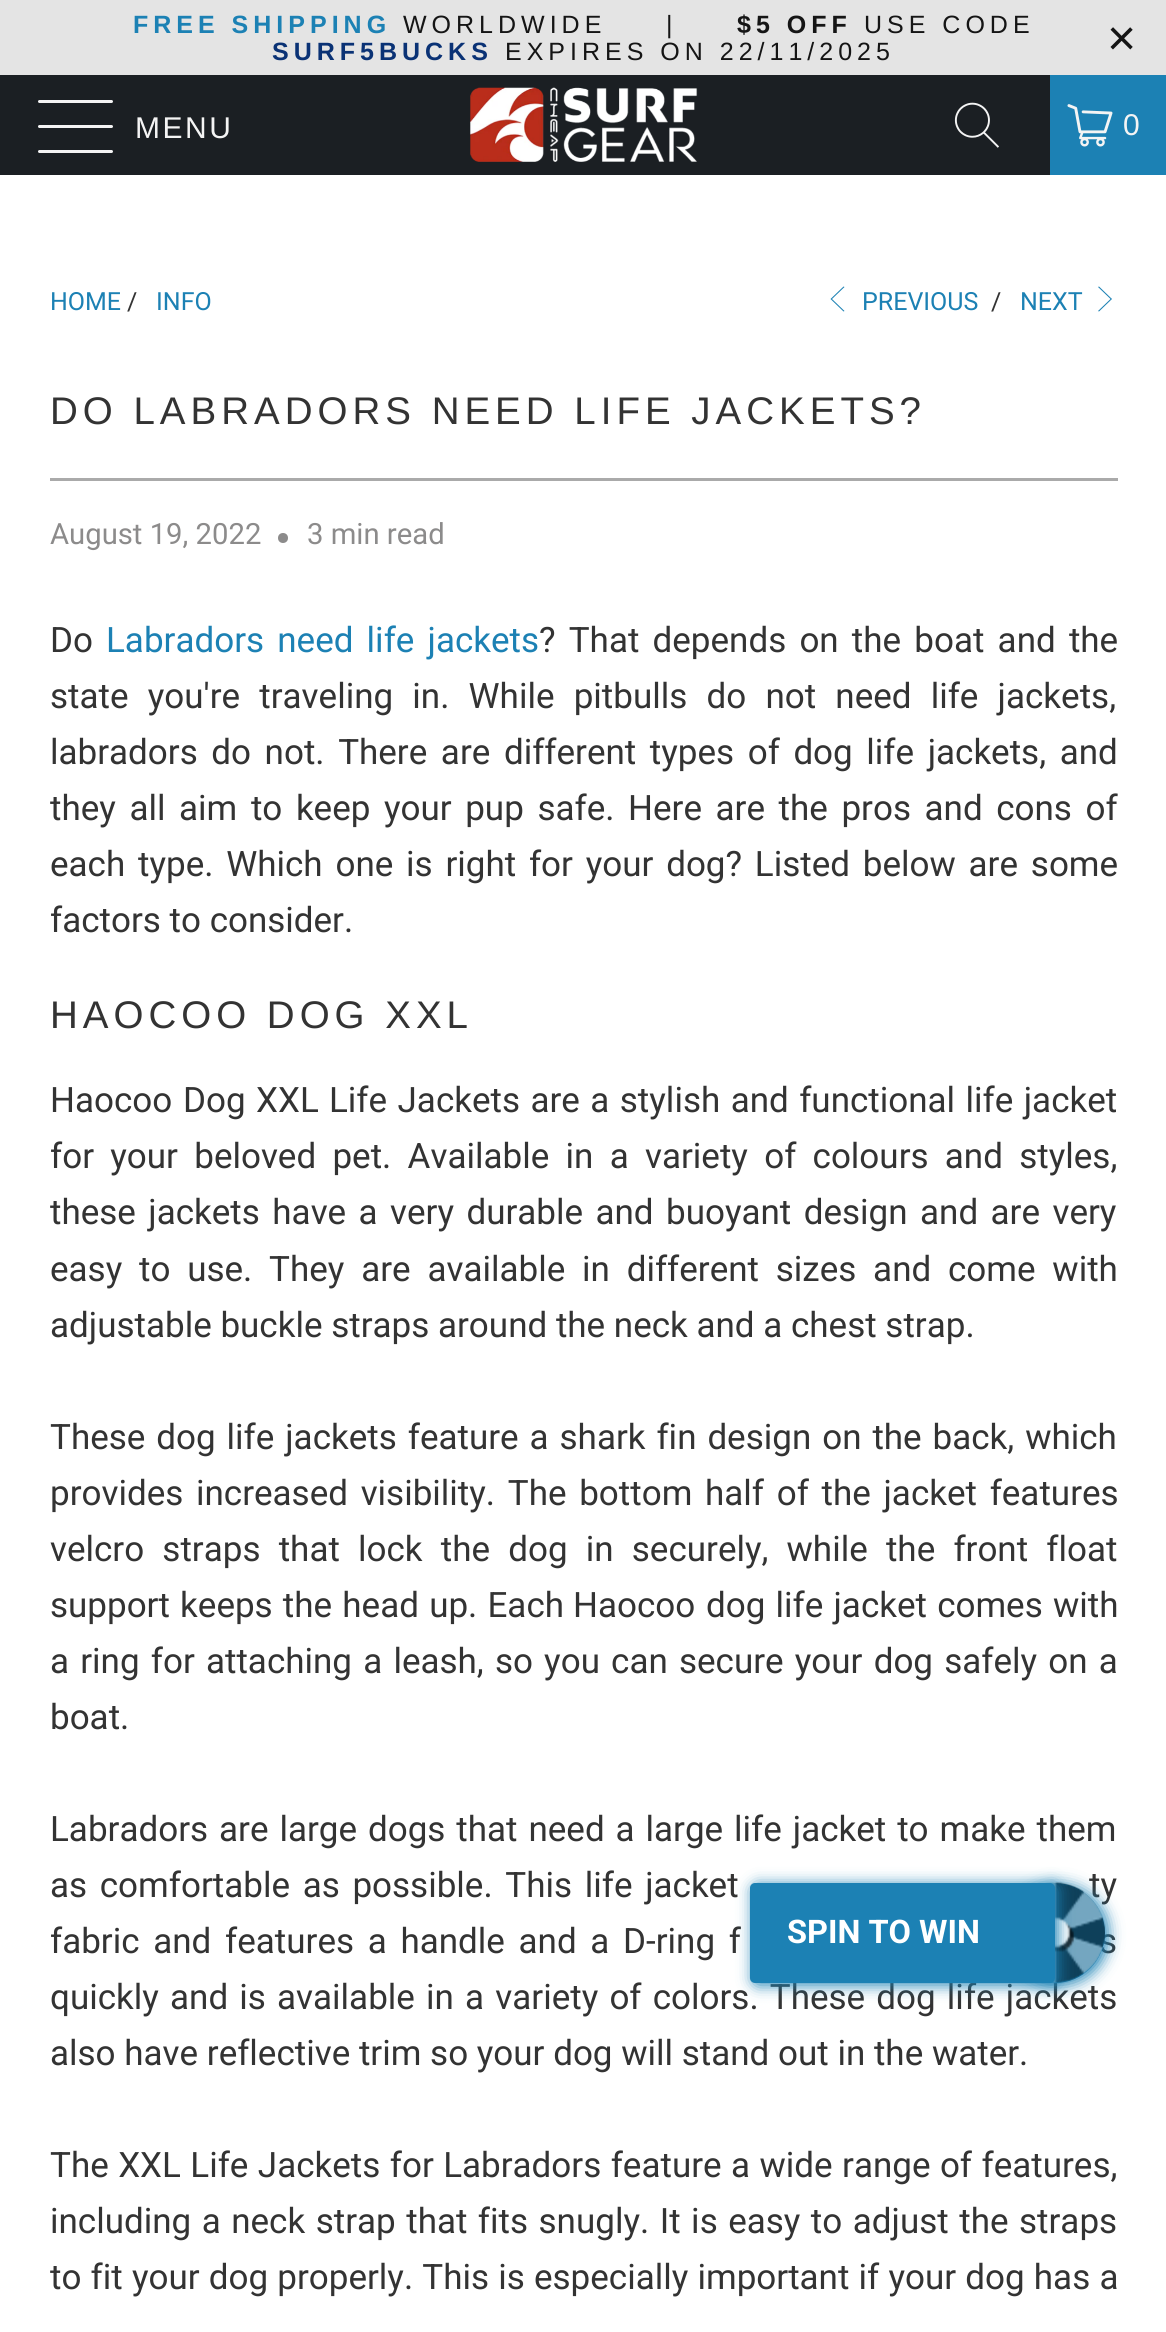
#include <cairo.h>
#include <math.h>
#include <stddef.h>

static cairo_t *c;
static void C(unsigned color){cairo_set_source_rgb(c, (color >> 16) / 255.0, (color >> 8 & 255) / 255.0, (color & 255) / 255.0);}
static void F(const char *family, double size, int italic, int bold){cairo_select_font_face(c, family, italic ? CAIRO_FONT_SLANT_ITALIC : CAIRO_FONT_SLANT_NORMAL,bold ? CAIRO_FONT_WEIGHT_BOLD : CAIRO_FONT_WEIGHT_NORMAL);cairo_set_font_size(c, size);}
static void T(double x, double y, const char *s){cairo_move_to(c, x, y);cairo_show_text(c, s);}
static void L(double x, double y, const char *s, double letter, double word){cairo_move_to(c, x, y);while (*s) {char ch[5] = {0};int n = 0;do ch[n++] = *s++; while ((*s & 0xC0) == 0x80);cairo_show_text(c, ch);cairo_rel_move_to(c, letter + word * (*ch == ' '), 0);}}
static void R(double x, double y, double w, double h){cairo_rectangle(c, x, y, w, h);cairo_fill(c);}
static void Q(double x, double y, double w, double h, double r){cairo_new_sub_path(c);cairo_arc(c, x + w - r, y + h - r, r, 0, M_PI / 2);cairo_arc(c, x + r, y + h - r, r, M_PI / 2, M_PI);cairo_arc(c, x + r, y + r, r, M_PI, 1.5 * M_PI);cairo_arc(c, x + w - r, y + r, r, 1.5 * M_PI, 2 * M_PI);cairo_close_path(c);}
static void S(double x, double y, double w, double h, double r, double blur, double alpha){cairo_push_group_with_content(c, CAIRO_CONTENT_ALPHA);cairo_set_operator(c, CAIRO_OPERATOR_SOURCE);for (int i = 15; i >= -15 && fmin(w, h) + blur * i / 3 > 0; i -= 2) {double e = blur * i / 6;cairo_set_source_rgba(c, 0, 0, 0, alpha * erfc((i - 1) / 8.5) / 2);Q(x - e, y - e, w + 2 * e, h + 2 * e, fmax(0, fmin(r + e + blur * .6, fmin(w, h) / 2 + e)));cairo_fill(c);}cairo_pattern_t *soft = cairo_pop_group(c);cairo_mask(c, soft);cairo_pattern_destroy(soft);}
static void I(const char *path, double x, double y, double w, double h){cairo_surface_t *image = cairo_image_surface_create_from_png(path);cairo_save(c);cairo_set_source_surface(c, image, x, y);cairo_rectangle(c, x, y, w, h);cairo_fill(c);cairo_restore(c);cairo_surface_destroy(image);}
int main(void) {
cairo_surface_t *surface = cairo_image_surface_create(CAIRO_FORMAT_RGB24, 1166, 2332);
c = cairo_create(surface);
cairo_font_options_t *options = cairo_font_options_create();
cairo_font_options_set_hint_metrics(options, CAIRO_HINT_METRICS_OFF);
cairo_font_options_set_hint_style(options, CAIRO_HINT_STYLE_NONE);
cairo_set_font_options(c, options);
cairo_set_miter_limit(c, 4);
C(0xffffff);
cairo_paint(c);
C(0xe4e4e4);
R(0,0,1166,75);
F("Arimo",25,0,1);
C(0x1c81b4);
L(133,33,"FREE SHIPPING",5,0);
F("Arimo",25,0,0);
C(0x151515);
L(403,33,"WORLDWIDE",5,0);
L(666,33,"|",5,0);
F("Arimo",25,0,1);
L(737,33,"$5 OFF",5,0);
F("Arimo",25,0,0);
L(864,33,"USE CODE",5,0);
F("Arimo",25,0,1);
C(0x0a3275);
L(272,60,"SURF5BUCKS",5,0);
F("Arimo",25,0,0);
C(0x151515);
L(505,60,"EXPIRES ON 22/11/2025",5,0);
F("Liberation Sans",50,0,0);
L(1107,55,"×",5,0);
C(0x1b1f23);
R(0,75,1050,100);
C(0xf4f4f4);
Q(38,100,75,3,1.5);
cairo_fill(c);
Q(38,125,75,3,1.5);
cairo_fill(c);
Q(38,150,75,3,1.5);
cairo_fill(c);
F("Arimo",30,0,0);
L(135,138,"MENU",2.5,0);
I("1.png",470,87,228,75);
I("2.png",954,102,45,46);
C(0x1c81b4);
R(1050,75,116,100);
I("3.png",1067,104,46,43);
C(0xf4f4f4);
L(1123,135,"0",2.5,0);
F("Roboto",25,0,0);
C(0x1c81b4);
T(50,310,"HOME");
C(0x333333);
T(127,310,"/");
C(0x1c81b4);
T(156,310,"INFO");
cairo_new_path(c);
cairo_move_to(c,843.5,311.5);
cairo_line_to(c,830.5,299);
cairo_line_to(c,843.5,286.5);
cairo_line_to(c,844.5,287);
cairo_line_to(c,832,299);
cairo_line_to(c,844.5,311);
cairo_close_path(c);
cairo_fill(c);
T(862,310,"PREVIOUS");
C(0x333333);
T(991,310,"/");
C(0x1c81b4);
T(1020,310,"NEXT");
cairo_new_path(c);
cairo_move_to(c,1099,311.5);
cairo_line_to(c,1098,311);
cairo_line_to(c,1110.5,299);
cairo_line_to(c,1098,287);
cairo_line_to(c,1099,286.5);
cairo_line_to(c,1112,299);
cairo_close_path(c);
cairo_fill(c);
F("Arimo",38.5,0,0);
C(0x333333);
L(50,424,"DO LABRADORS NEED LIFE JACKETS?",5,0);
C(0xaaaaaa);
R(50,478,1068,3);
F("Roboto",29.25,0,0);
C(0x8c8b8b);
T(50,544,"August 19, 2022");
cairo_new_path(c);
cairo_arc(c,283,538,5,0,2 * M_PI);
cairo_fill(c);
T(307,544,"3 min read");
F("Roboto",35,0,0);
C(0x333333);
T(50,652,"Do");
C(0x1c81b4);
L(106,652,"Labradors need life jackets",0,4.5);
C(0x333333);
L(539,652,"? That depends on the boat and the",0,4.5);
L(50,708,"state you're traveling in. While pitbulls do not need life jackets,",0,10.5);
L(50,764,"labradors do not. There are different types of dog life jackets, and",0,4.9);
L(50,820,"they all aim to keep your pup safe. Here are the pros and cons of",0,4.9);
L(50,876,"each type. Which one is right for your dog? Listed below are some",0,4.1);
T(50,932,"factors to consider.");
F("Arimo",38.5,0,0);
L(50,1028,"HAOCOO DOG XXL",5,0);
F("Roboto",35,0,0);
T(50,1112,"Haocoo");
T(183,1112,"Dog");
T(256,1112,"XXL");
L(329,1112,"Life Jackets are a stylish and functional life jacket",0,1.75);
L(50,1168,"for your beloved pet. Available in a variety of colours and styles,",0,7.6);
L(50,1224,"these jackets have a very durable and buoyant design and are very",0,3.75);
L(50,1281,"easy to use. They are available in different sizes and come with",0,8.1);
T(50,1337,"adjustable buckle straps around the neck and a chest strap.");
L(50,1449,"These dog life jackets feature a shark fin design on the back, which",0,2.25);
L(50,1505,"provides increased visibility. The bottom half of the jacket features",0,4);
L(50,1561,"velcro straps that lock the dog in securely, while the front float",0,9.5);
L(50,1617,"support keeps the head up. Each",0,1.5);
T(573,1617,"Haocoo");
L(706,1617,"dog life jacket comes with",0,1.5);
L(50,1673,"a ring for attaching a leash, so you can secure your dog safely on a",0,2.5);
T(50,1729,"boat.");
L(50,1841,"Labradors are large dogs that need a large life jacket to make them",0,2.25);
L(50,1897,"as comfortable as possible. This life jacket",0,4);
L(1089,1897,"ty",0,4);
L(50,1953,"fabric and features a handle and a D-ring f",0,5);
L(1099,1953,"s",0,5);
L(50,2009,"quickly and is available in a variety of colors. These dog life jackets",0,2.5);
T(50,2065,"also have reflective trim so your dog will stand out in the water.");
L(50,2177,"The XXL Life Jackets for Labradors feature a wide range of features,",0,.75);
L(50,2233,"including a neck strap that fits snugly. It is easy to adjust the straps",0,1.8);
L(50,2289,"to fit your dog properly. This is especially important if your dog has a",0,.5);
C(0x1c81b4);
S(1008,1885,100,100,50,7.5,1);
C(0x1c81b4);
cairo_arc(c,1055,1933,50,0,2 * M_PI);
cairo_fill(c);
I("4.png",1046,1882,59,101);
C(0x1c81b4);
S(753,1885,305,100,5,7.5,1);
C(0x1c81b4);
Q(750,1883,305,100,5);
cairo_fill(c);
F("Roboto",32.5,0,1);
C(0xffffff);
T(787,1943,"SPIN TO WIN");
cairo_surface_write_to_png(surface, "o.png");
cairo_font_options_destroy(options);
cairo_destroy(c);
cairo_surface_destroy(surface);
return 0;
}
